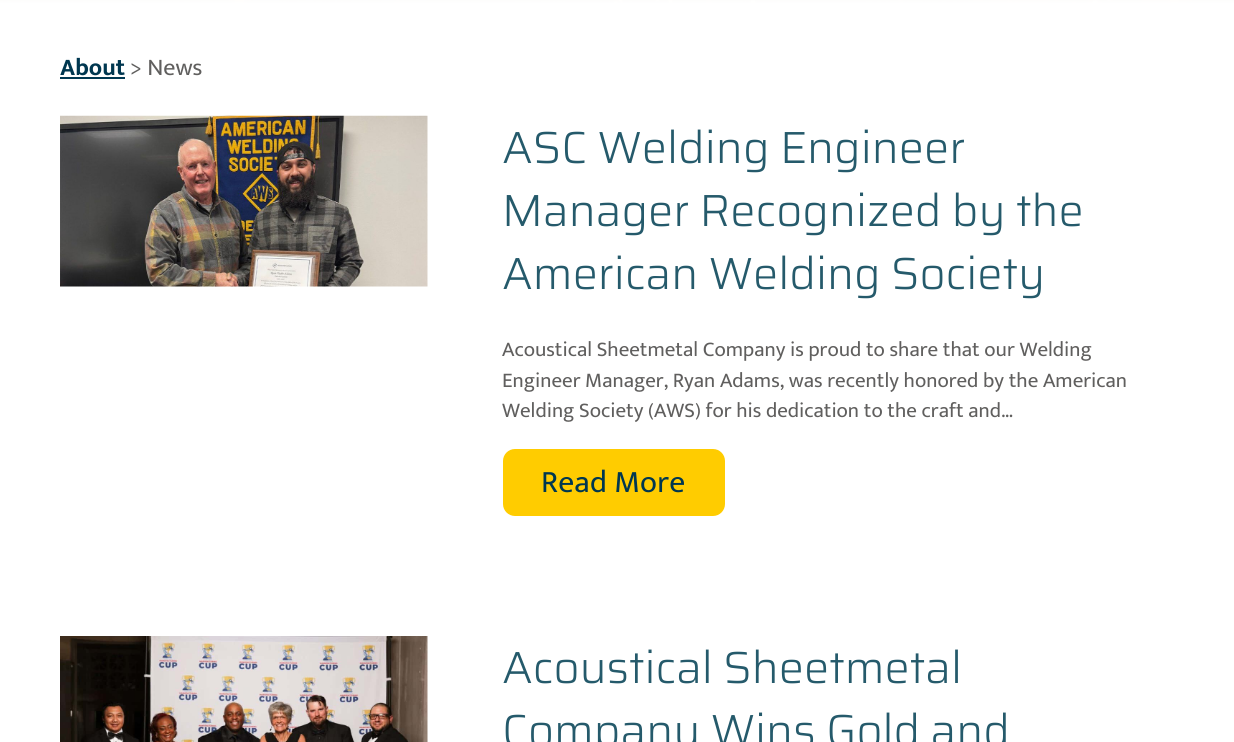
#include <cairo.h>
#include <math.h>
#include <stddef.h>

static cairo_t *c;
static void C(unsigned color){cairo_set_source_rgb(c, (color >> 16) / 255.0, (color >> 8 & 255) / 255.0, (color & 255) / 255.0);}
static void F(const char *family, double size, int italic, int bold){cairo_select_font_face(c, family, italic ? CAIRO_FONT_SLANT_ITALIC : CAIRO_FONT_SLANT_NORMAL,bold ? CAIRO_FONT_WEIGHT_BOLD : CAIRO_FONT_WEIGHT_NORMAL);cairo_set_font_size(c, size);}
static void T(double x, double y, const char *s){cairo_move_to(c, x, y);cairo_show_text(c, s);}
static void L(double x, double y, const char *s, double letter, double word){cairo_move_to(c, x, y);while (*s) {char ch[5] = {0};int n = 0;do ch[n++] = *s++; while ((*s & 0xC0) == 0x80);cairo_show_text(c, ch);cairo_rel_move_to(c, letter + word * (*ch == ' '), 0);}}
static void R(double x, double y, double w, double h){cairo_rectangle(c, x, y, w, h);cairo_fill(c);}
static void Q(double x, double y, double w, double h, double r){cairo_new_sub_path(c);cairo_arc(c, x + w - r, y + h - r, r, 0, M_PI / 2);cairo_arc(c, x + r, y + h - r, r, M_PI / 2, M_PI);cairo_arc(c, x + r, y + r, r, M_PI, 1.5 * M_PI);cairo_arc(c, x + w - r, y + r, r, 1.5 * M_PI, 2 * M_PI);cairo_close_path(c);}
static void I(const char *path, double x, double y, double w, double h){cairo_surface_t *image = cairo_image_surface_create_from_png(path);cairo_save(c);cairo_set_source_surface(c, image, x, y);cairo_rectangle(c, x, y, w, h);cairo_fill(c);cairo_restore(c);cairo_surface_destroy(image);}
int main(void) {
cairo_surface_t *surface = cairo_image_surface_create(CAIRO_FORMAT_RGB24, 1234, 742);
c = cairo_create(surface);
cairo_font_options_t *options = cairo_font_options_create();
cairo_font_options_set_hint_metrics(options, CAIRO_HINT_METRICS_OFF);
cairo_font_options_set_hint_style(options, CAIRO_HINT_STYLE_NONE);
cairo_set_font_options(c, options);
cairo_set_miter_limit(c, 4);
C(0xffffff);
cairo_paint(c);
I("1.png",0,0,1234,51);
F("Mukta Mahee",24,0,1);
C(0x003750);
T(60,75,"About");
R(60,77,65,2);
F("Mukta Mahee",24,0,0);
C(0x605f5e);
T(130,75,"> News");
I("2.png",60,115,368,172);
F("Saira Light",45,0,0);
C(0x255a6b);
T(502,163,"ASC Welding Engineer");
T(502,226,"Manager Recognized by the");
T(502,289,"American Welding Society");
F("Mukta Mahee",21,0,0);
C(0x605f5e);
T(502,356,"Acoustical Sheetmetal Company is proud to share that our Welding");
T(502,387,"Engineer Manager, Ryan Adams, was recently honored by the American");
T(502,417,"Welding Society (AWS) for his dedication to the craft and…");
C(0xffcc00);
Q(504,450,220,65,11);
cairo_fill_preserve(c);
cairo_stroke(c);
F("Mukta Mahee",31.5,0,0);
C(0x003750);
L(541,492,"Read More",.25,0);
I("3.png",60,636,368,106);
F("Saira Light",45,0,0);
C(0x255a6b);
T(502,683,"Acoustical Sheetmetal");
T(502,746,"Company Wins Gold and");
cairo_surface_write_to_png(surface, "o.png");
cairo_font_options_destroy(options);
cairo_destroy(c);
cairo_surface_destroy(surface);
return 0;
}
